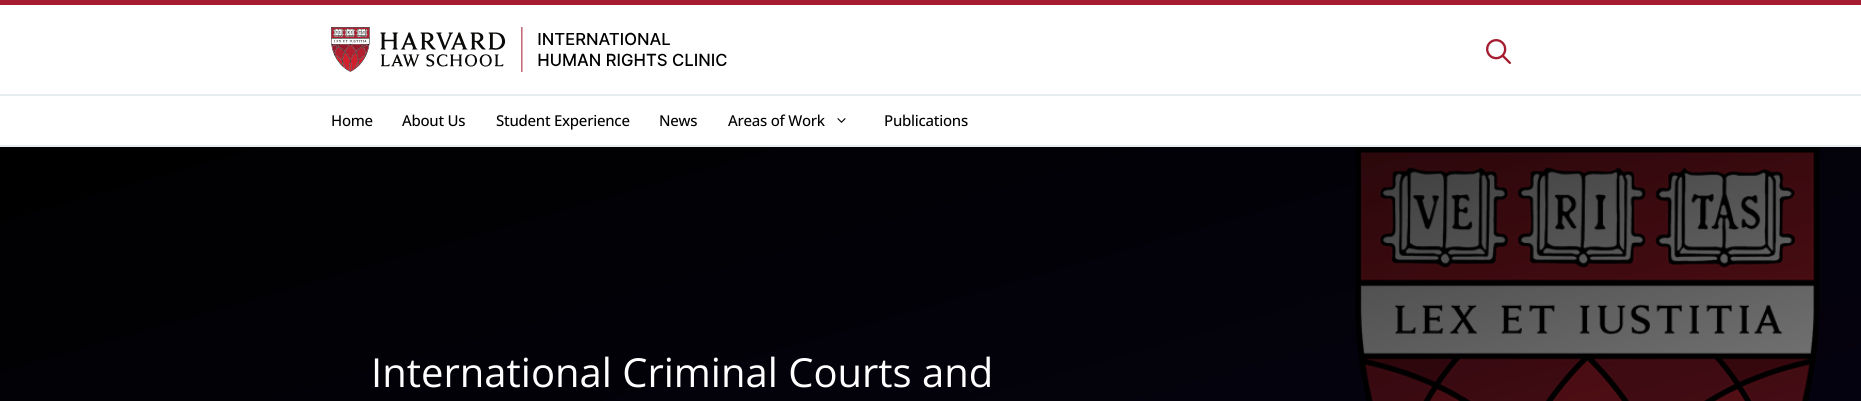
#include <cairo.h>
#include <math.h>
#include <stddef.h>

static cairo_t *c;
static void C(unsigned color){cairo_set_source_rgb(c, (color >> 16) / 255.0, (color >> 8 & 255) / 255.0, (color & 255) / 255.0);}
static void F(const char *family, double size, int italic, int bold){cairo_select_font_face(c, family, italic ? CAIRO_FONT_SLANT_ITALIC : CAIRO_FONT_SLANT_NORMAL,bold ? CAIRO_FONT_WEIGHT_BOLD : CAIRO_FONT_WEIGHT_NORMAL);cairo_set_font_size(c, size);}
static void T(double x, double y, const char *s){cairo_move_to(c, x, y);cairo_show_text(c, s);}
static void L(double x, double y, const char *s, double letter, double word){cairo_move_to(c, x, y);while (*s) {char ch[5] = {0};int n = 0;do ch[n++] = *s++; while ((*s & 0xC0) == 0x80);cairo_show_text(c, ch);cairo_rel_move_to(c, letter + word * (*ch == ' '), 0);}}
static void R(double x, double y, double w, double h){cairo_rectangle(c, x, y, w, h);cairo_fill(c);}
static void I(const char *path, double x, double y, double w, double h){cairo_surface_t *image = cairo_image_surface_create_from_png(path);cairo_save(c);cairo_set_source_surface(c, image, x, y);cairo_rectangle(c, x, y, w, h);cairo_fill(c);cairo_restore(c);cairo_surface_destroy(image);}
int main(void) {
cairo_surface_t *surface = cairo_image_surface_create(CAIRO_FORMAT_RGB24, 1861, 401);
c = cairo_create(surface);
cairo_font_options_t *options = cairo_font_options_create();
cairo_font_options_set_hint_metrics(options, CAIRO_HINT_METRICS_OFF);
cairo_font_options_set_hint_style(options, CAIRO_HINT_STYLE_NONE);
cairo_set_font_options(c, options);
cairo_set_miter_limit(c, 4);
cairo_pattern_t *gradient;
C(0xffffff);
cairo_paint(c);
C(0xa51c30);
R(0,0,1861,5);
C(0xe8eef0);
R(0,94,1861,2);
I("1.png",331,27,396,45);
R(0,145,1861,2);
I("2.png",1486,39,25,25);
F("Open Sans Medium",15,0,0);
C(0x000000);
L(331,126,"Home",-.25,0);
L(402,126,"About Us",-.25,0);
L(496,126,"Student Experience",-.25,0);
L(659,126,"News",-.25,0);
L(728,126,"Areas of Work",-.25,0);
I("3.png",837,118,9,5);
L(884,126,"Publications",-.25,0);
C(0x0b0521);
R(0,147,1861,254);
I("4.png",1355,147,465,254);
gradient = cairo_pattern_create_linear(787,-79,1074,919);
cairo_pattern_add_color_stop_rgba(gradient,0,0,0,0,1);
cairo_pattern_add_color_stop_rgba(gradient,1,0,0,0,.35);
cairo_set_source(c,gradient);
cairo_pattern_destroy(gradient);
R(0,147,1861,254);
F("Open Sans",40,0,0);
C(0xffffff);
T(371,387,"International Criminal Courts and");
cairo_surface_write_to_png(surface, "o.png");
cairo_font_options_destroy(options);
cairo_destroy(c);
cairo_surface_destroy(surface);
return 0;
}
